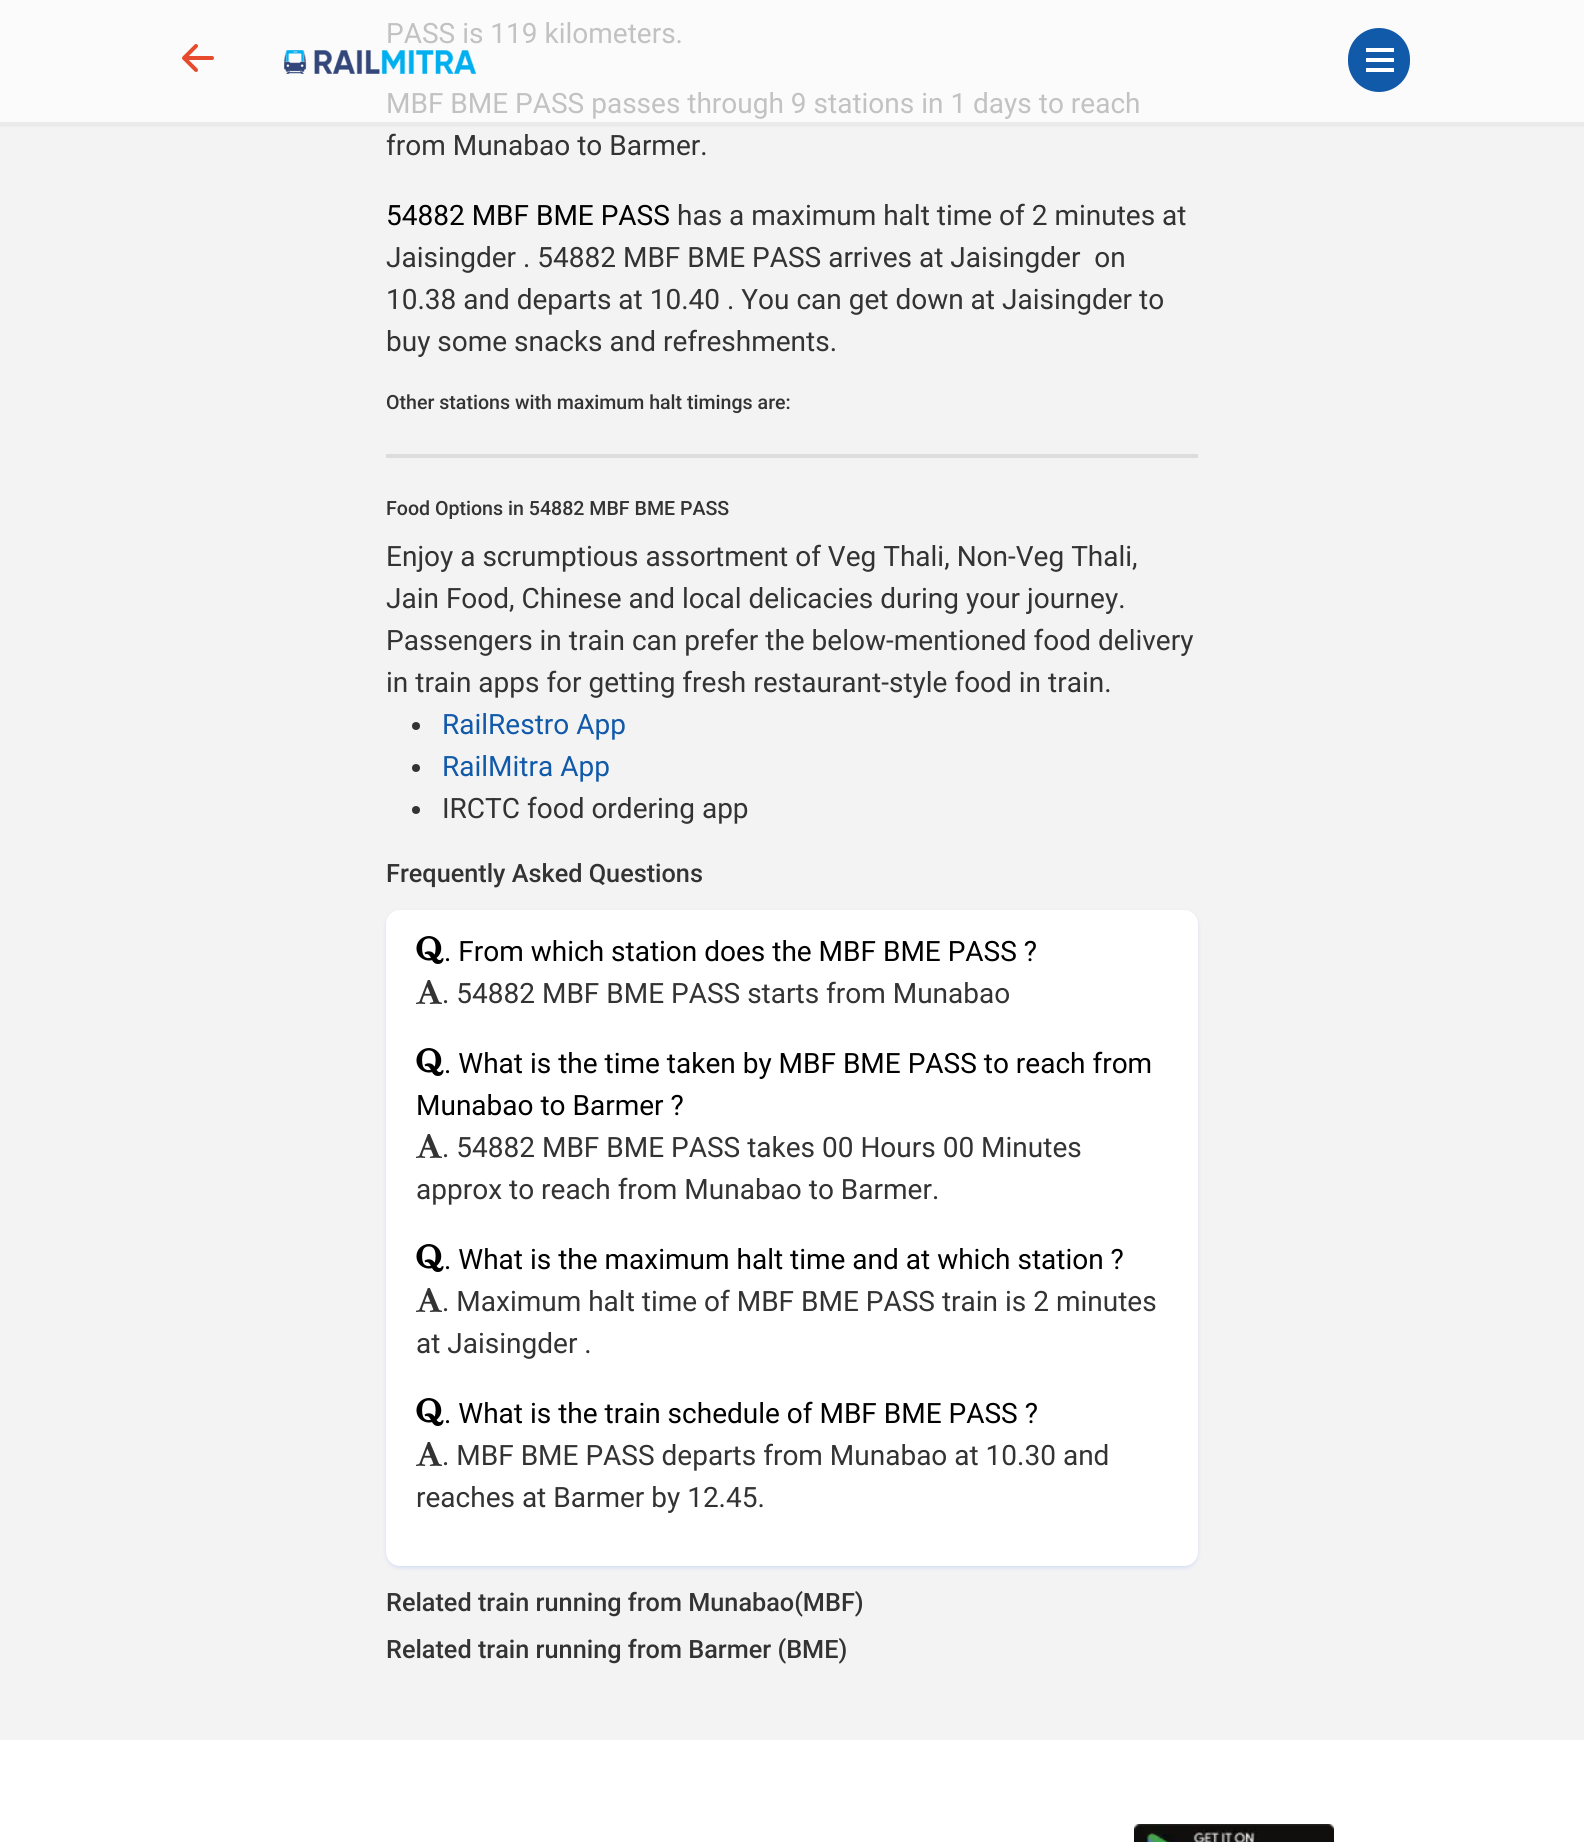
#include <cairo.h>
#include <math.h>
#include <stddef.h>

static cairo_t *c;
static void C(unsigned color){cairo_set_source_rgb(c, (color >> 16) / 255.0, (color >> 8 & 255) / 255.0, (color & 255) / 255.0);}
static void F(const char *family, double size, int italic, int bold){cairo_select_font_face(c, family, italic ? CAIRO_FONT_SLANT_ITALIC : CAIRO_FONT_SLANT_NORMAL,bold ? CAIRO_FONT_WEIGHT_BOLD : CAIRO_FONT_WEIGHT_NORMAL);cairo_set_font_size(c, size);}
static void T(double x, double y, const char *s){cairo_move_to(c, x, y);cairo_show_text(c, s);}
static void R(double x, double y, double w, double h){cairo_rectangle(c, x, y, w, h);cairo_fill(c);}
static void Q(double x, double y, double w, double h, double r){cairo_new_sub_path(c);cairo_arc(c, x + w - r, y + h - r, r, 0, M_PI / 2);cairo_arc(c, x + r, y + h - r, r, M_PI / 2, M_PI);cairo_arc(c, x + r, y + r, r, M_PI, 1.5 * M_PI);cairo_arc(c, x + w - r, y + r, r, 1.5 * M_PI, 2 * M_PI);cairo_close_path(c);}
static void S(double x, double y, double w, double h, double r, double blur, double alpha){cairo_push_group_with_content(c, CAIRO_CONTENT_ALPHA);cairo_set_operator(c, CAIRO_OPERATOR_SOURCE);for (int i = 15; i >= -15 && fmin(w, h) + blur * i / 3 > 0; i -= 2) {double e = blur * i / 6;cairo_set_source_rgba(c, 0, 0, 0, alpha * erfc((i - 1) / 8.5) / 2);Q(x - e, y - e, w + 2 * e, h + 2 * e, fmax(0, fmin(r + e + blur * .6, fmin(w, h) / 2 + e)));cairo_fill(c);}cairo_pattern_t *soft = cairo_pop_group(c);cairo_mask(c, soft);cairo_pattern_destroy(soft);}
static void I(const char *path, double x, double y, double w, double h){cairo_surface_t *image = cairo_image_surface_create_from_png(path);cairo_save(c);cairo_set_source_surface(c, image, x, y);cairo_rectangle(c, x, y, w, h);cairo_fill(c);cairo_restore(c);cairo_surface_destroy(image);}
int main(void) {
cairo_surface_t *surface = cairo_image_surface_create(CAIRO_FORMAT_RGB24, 1584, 1842);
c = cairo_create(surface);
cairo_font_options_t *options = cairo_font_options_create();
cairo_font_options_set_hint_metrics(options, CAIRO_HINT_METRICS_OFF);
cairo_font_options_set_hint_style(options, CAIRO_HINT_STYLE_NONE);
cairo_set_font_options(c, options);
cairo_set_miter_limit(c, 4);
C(0xf3f3f3);
cairo_paint(c);
C(0xfbfbfb);
R(0,0,1584,122);
cairo_save(c);
cairo_rectangle(c,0,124,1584,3);
cairo_clip(c);
C(0x000000);
S(0,0,1584,124,0,4,.1);
cairo_restore(c);
C(0xebebeb);
R(0,122,1584,2);
I("1.png",182,44,32,28);
I("2.png",284,50,192,24);
C(0x1159a9);
Q(1348,28,62,64,31);
cairo_fill(c);
C(0xffffff);
R(1366,48,28,4);
R(1366,58,28,4);
R(1366,68,28,4);
F("Roboto",28,0,0);
C(0xc2c2c2);
T(386,43,"PASS is 119 kilometers.");
T(386,113,"MBF BME PASS passes through 9 stations in 1 days to reach");
C(0x333333);
T(386,155,"from Munabao to Barmer.");
C(0x000000);
T(386,225,"54882 MBF BME PASS");
C(0x333333);
T(677,225,"has a maximum halt time of 2 minutes at");
T(386,267,"Jaisingder . 54882 MBF BME PASS arrives at Jaisingder  on");
T(386,309,"10.38 and departs at 10.40 . You can get down at Jaisingder to");
T(386,351,"buy some snacks and refreshments.");
F("Roboto Medium",19.6,0,0);
T(386,409,"Other stations with maximum halt timings are:");
C(0xdddddd);
R(386,454,812,4);
C(0x333333);
T(386,515,"Food Options in 54882 MBF BME PASS");
F("Roboto",28,0,0);
T(386,566,"Enjoy a scrumptious assortment of Veg Thali, Non-Veg Thali,");
T(386,608,"Jain Food, Chinese and local delicacies during your journey.");
T(386,650,"Passengers in train can prefer the below-mentioned food delivery");
T(386,692,"in train apps for getting fresh restaurant-style food in train.");
cairo_new_path(c);
cairo_arc(c,416,726,4,0,2 * M_PI);
cairo_fill(c);
C(0x1159a9);
T(442,734,"RailRestro App");
C(0x333333);
cairo_new_path(c);
cairo_arc(c,416,768,4,0,2 * M_PI);
cairo_fill(c);
C(0x1159a9);
T(442,776,"RailMitra App");
C(0x333333);
cairo_new_path(c);
cairo_arc(c,416,810,4,0,2 * M_PI);
cairo_fill(c);
T(442,818,"IRCTC food ordering app");
F("Roboto Medium",25.25,0,0);
T(386,882,"Frequently Asked Questions");
C(0xd7def4);
S(386,912,812,656,14,2,1);
C(0xffffff);
Q(386,910,812,656,14);
cairo_fill(c);
I("3.png",416,936,28,28);
F("Roboto",28,0,0);
C(0x000000);
T(444,961,". From which station does the MBF BME PASS ?");
I("4.png",416,980,26,24);
C(0x333333);
T(442,1003,". 54882 MBF BME PASS starts from Munabao");
I("3.png",416,1048,28,28);
C(0x000000);
T(444,1073,". What is the time taken by MBF BME PASS to reach from");
T(416,1115,"Munabao to Barmer ?");
I("4.png",416,1134,26,24);
C(0x333333);
T(442,1157,". 54882 MBF BME PASS takes 00 Hours 00 Minutes");
T(416,1199,"approx to reach from Munabao to Barmer.");
I("3.png",416,1244,28,28);
C(0x000000);
T(444,1269,". What is the maximum halt time and at which station ?");
I("4.png",416,1288,26,24);
C(0x333333);
T(442,1311,". Maximum halt time of MBF BME PASS train is 2 minutes");
T(416,1353,"at Jaisingder .");
I("3.png",416,1398,28,28);
C(0x000000);
T(444,1423,". What is the train schedule of MBF BME PASS ?");
I("4.png",416,1442,26,24);
C(0x333333);
T(442,1465,". MBF BME PASS departs from Munabao at 10.30 and");
T(416,1507,"reaches at Barmer by 12.45.");
F("Roboto Medium",25.25,0,0);
T(386,1611,"Related train running from Munabao(MBF)");
T(386,1658,"Related train running from Barmer (BME)");
C(0xffffff);
R(0,1740,1584,102);
I("5.png",1134,1824,200,18);
cairo_surface_write_to_png(surface, "o.png");
cairo_font_options_destroy(options);
cairo_destroy(c);
cairo_surface_destroy(surface);
return 0;
}
